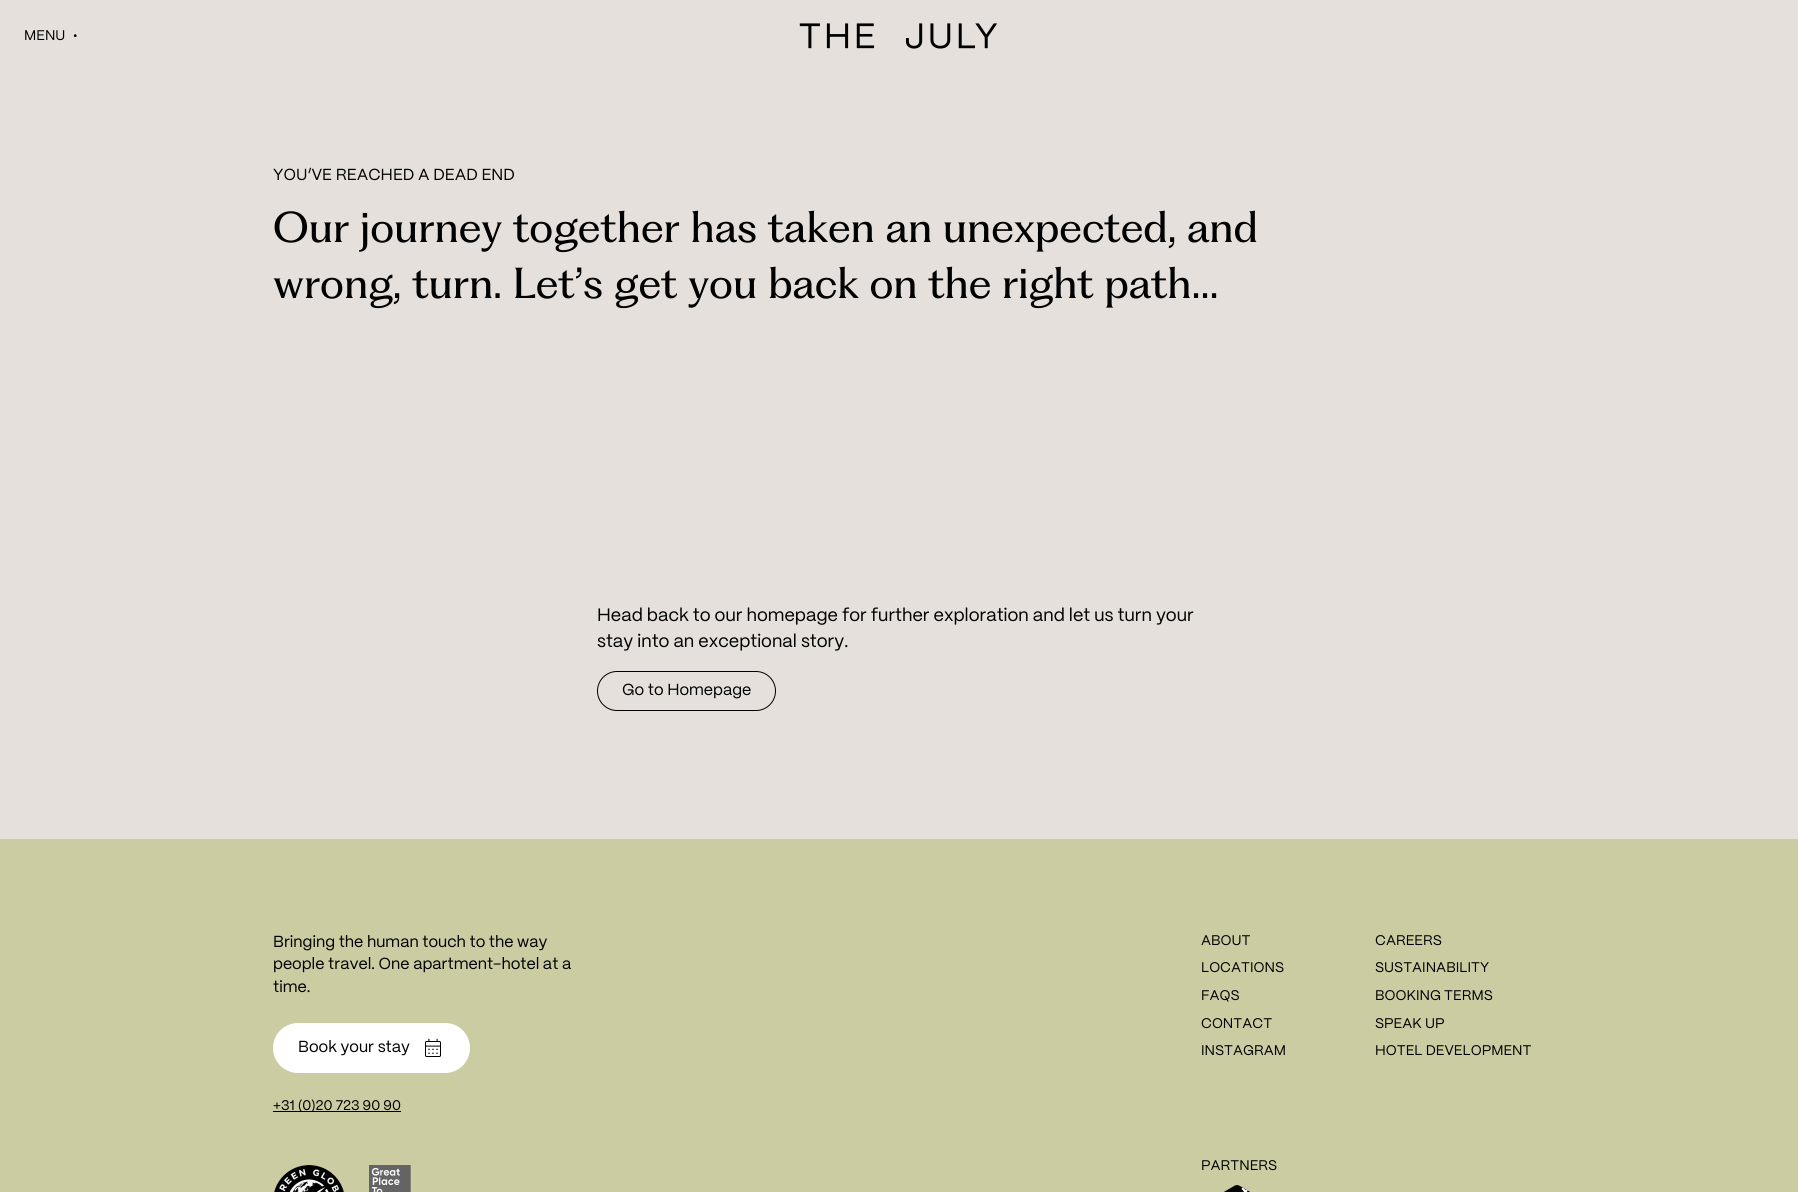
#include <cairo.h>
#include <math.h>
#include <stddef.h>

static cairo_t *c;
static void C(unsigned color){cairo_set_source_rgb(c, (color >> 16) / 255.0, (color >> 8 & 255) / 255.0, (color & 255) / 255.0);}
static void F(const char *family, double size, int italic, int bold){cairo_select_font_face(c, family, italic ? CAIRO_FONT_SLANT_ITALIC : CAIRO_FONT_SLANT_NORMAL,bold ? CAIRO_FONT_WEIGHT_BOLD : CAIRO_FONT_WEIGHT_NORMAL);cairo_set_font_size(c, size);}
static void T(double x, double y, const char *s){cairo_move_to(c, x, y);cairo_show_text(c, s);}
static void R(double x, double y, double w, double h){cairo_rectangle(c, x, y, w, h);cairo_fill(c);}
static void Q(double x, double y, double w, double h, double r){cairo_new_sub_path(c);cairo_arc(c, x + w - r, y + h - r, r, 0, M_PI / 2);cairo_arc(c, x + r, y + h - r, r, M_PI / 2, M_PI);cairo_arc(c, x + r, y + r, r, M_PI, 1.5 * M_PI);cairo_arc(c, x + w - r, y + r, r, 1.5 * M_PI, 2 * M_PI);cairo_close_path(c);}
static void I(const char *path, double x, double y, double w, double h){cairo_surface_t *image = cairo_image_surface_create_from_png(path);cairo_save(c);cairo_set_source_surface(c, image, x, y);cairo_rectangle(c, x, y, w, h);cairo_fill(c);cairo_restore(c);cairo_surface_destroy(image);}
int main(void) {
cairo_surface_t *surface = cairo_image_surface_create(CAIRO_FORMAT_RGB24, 1798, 1192);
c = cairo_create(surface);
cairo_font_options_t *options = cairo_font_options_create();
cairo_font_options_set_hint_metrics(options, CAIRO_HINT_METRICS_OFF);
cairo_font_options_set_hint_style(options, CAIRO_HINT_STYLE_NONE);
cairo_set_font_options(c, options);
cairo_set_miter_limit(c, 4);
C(0xe5e0db);
cairo_paint(c);
F("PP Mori",14,0,0);
C(0x000000);
T(24,40,"MENU");
T(73,40,"•");
I("1.png",799,23,199,26);
F("PP Mori",16,0,0);
T(273,180,"YOU’VE REACHED A DEAD END");
F("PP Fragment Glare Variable",40,0,0);
T(273,242,"Our journey together has taken an unexpected, and");
T(273,298,"wrong, turn. Let’s get you back on the right path…");
F("PP Mori",18,0,0);
T(597,621,"Head back to our homepage for further exploration and let us turn your");
T(597,647,"stay into an exceptional story.");
Q(597.5,671.5,178,39,19.5);
cairo_set_line_width(c,1);
cairo_stroke(c);
F("PP Mori",16,0,0);
T(622,695,"Go to Homepage");
C(0xcccca3);
R(0,839,1798,353);
C(0x000000);
T(273,947,"Bringing the human touch to the way");
T(273,969,"people travel. One apartment-hotel at a");
T(273,992,"time.");
C(0xffffff);
Q(273,1023,197,50,25);
cairo_fill(c);
C(0x000000);
T(298,1052,"Book your stay");
I("2.png",425,1038,16,19);
R(273,1111,128,1);
F("PP Mori",14,0,0);
T(273,1110,"+31 (0)20 723 90 90");
T(1201,945,"ABOUT");
T(1375,945,"CAREERS");
T(1201,972,"LOCATIONS");
T(1375,972,"SUSTAINABILITY");
T(1201,1000,"FAQS");
T(1375,1000,"BOOKING TERMS");
T(1201,1028,"CONTACT");
T(1375,1028,"SPEAK UP");
T(1201,1055,"INSTAGRAM");
T(1375,1055,"HOTEL DEVELOPMENT");
I("3.png",274,1165,70,27);
I("4.png",369,1165,42,27);
T(1201,1170,"PARTNERS");
I("5.png",1224,1185,26,7);
cairo_surface_write_to_png(surface, "o.png");
cairo_font_options_destroy(options);
cairo_destroy(c);
cairo_surface_destroy(surface);
return 0;
}
